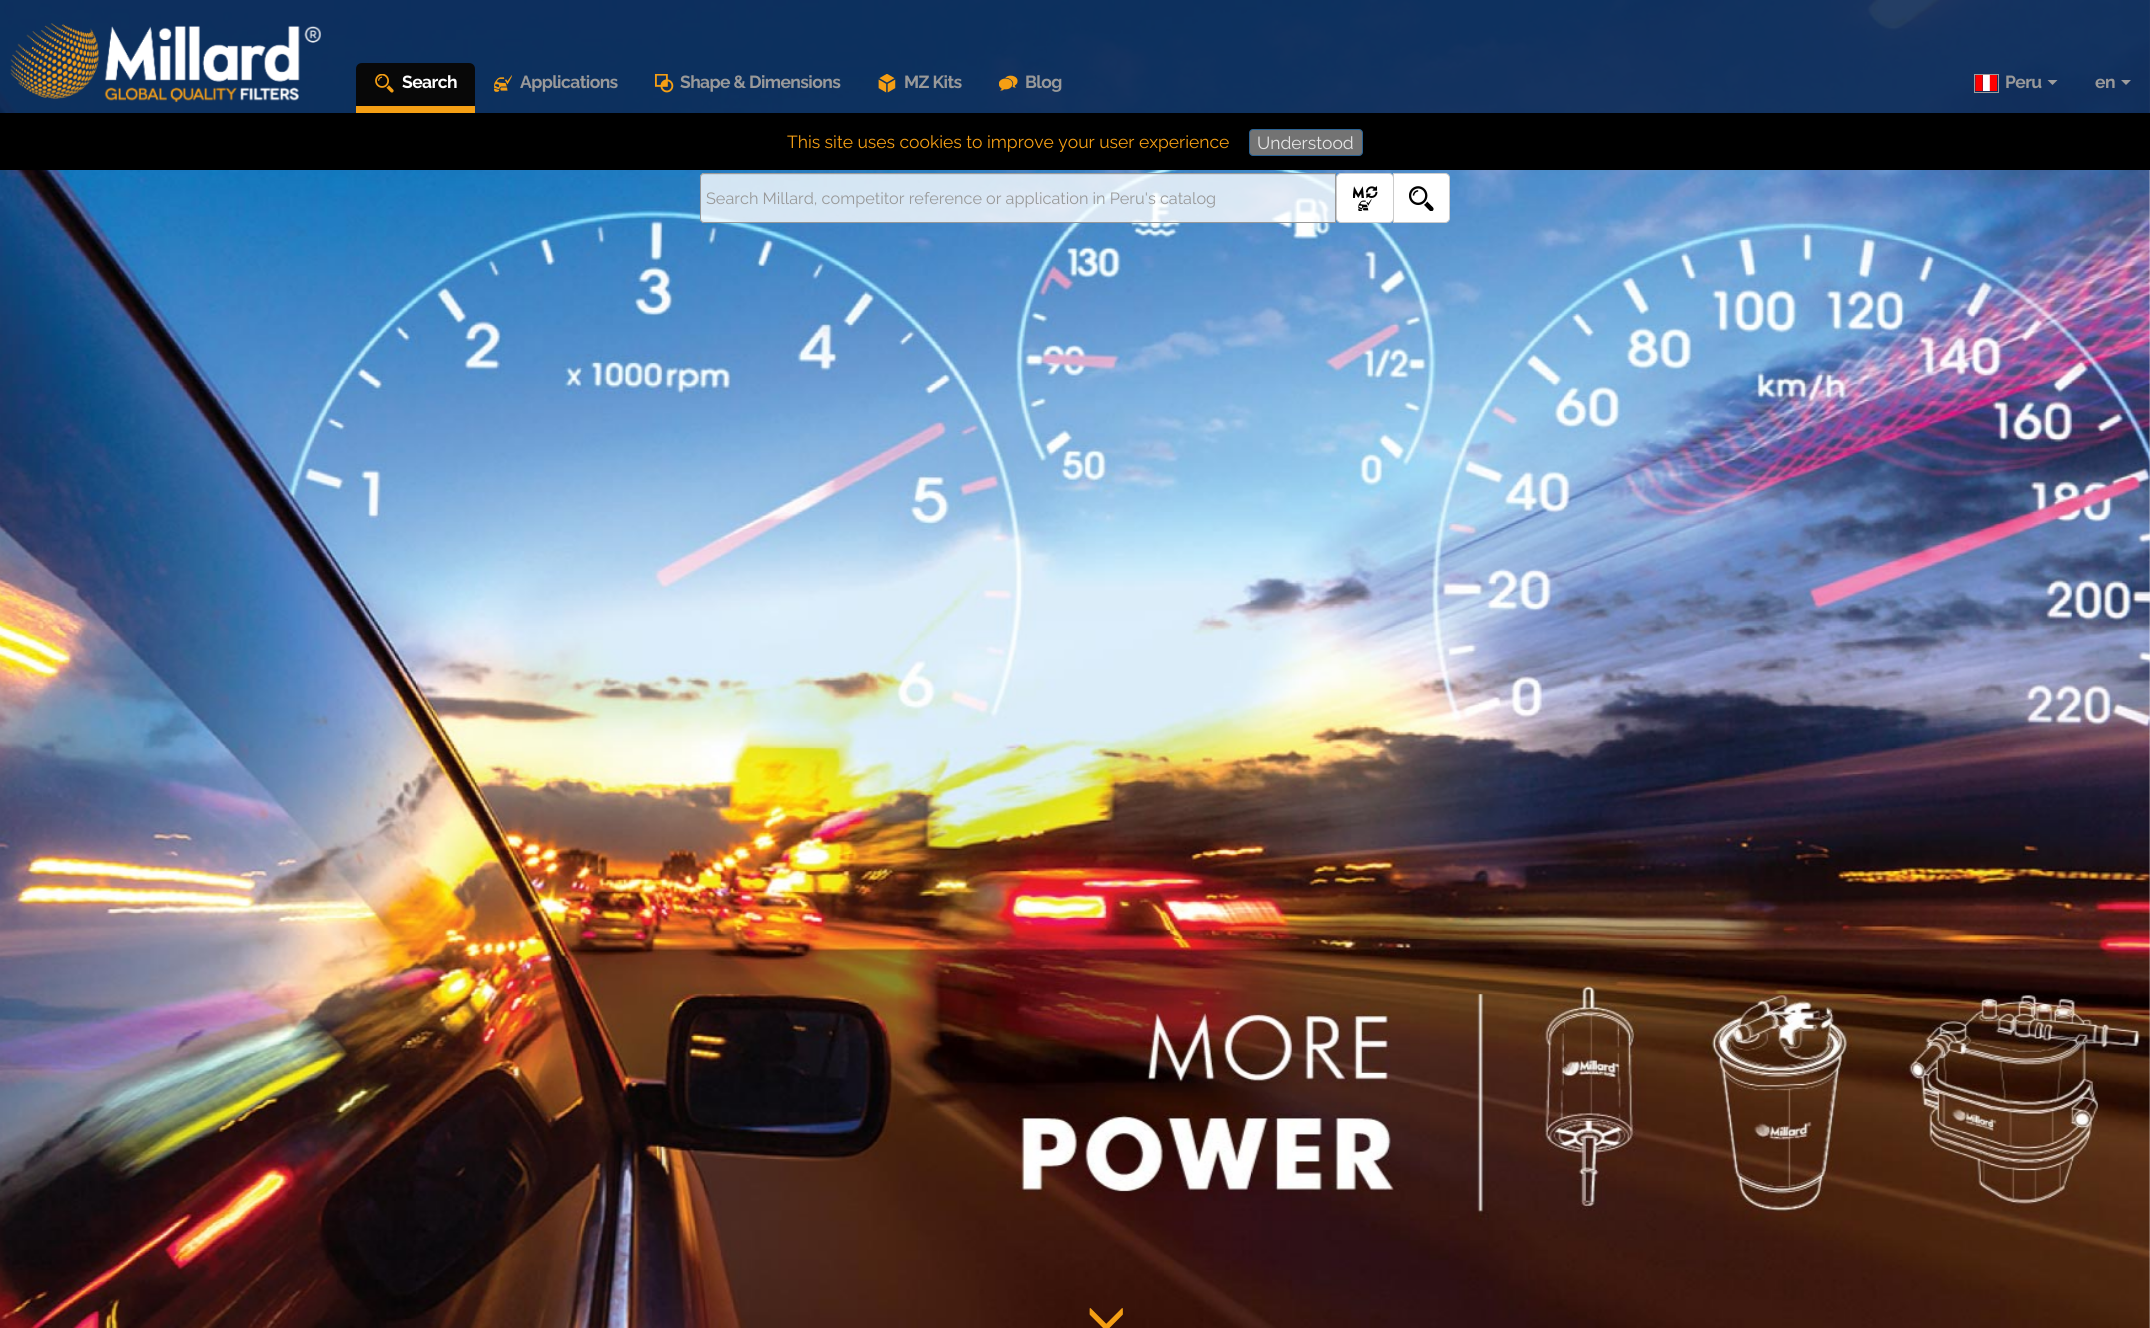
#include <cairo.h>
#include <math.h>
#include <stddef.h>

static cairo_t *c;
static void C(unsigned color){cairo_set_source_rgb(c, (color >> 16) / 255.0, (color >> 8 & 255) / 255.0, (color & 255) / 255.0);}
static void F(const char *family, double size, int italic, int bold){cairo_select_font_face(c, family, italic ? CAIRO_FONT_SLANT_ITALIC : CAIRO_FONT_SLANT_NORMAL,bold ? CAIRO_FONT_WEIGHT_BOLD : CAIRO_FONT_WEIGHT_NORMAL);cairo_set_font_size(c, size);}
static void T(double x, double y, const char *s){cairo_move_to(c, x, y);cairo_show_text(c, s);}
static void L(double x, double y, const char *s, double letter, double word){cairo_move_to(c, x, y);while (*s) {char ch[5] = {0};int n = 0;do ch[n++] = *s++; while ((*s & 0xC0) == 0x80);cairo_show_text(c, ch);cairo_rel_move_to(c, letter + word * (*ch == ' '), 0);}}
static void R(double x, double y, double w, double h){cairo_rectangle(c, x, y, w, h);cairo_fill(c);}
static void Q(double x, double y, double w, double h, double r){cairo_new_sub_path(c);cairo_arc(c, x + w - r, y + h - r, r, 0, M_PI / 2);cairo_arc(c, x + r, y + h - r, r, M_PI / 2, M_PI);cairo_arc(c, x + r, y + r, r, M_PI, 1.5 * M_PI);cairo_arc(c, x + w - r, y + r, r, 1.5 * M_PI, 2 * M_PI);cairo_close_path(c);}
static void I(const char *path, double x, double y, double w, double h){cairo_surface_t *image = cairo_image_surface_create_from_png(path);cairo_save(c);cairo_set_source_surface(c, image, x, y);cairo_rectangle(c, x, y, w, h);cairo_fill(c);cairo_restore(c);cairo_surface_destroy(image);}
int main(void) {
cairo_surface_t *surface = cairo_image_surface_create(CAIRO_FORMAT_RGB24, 2150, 1328);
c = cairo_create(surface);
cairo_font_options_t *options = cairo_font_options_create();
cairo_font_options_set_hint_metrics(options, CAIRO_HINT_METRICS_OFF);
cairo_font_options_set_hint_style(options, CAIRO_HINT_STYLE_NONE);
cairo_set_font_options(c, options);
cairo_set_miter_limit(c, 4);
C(0xffffff);
cairo_paint(c);
I("8.png",0,0,2150,1328);
cairo_set_source_rgba(c,0.051,0.161,0.333,0.9);
R(0,0,2150,113);
I("1.png",10,23,312,80);
C(0xf59f14);
R(356,106,119,7);
C(0x080808);
cairo_new_path(c);
cairo_move_to(c,362,63);
cairo_line_to(c,469,63);
cairo_curve_to(c,472.5,63,475,65.5,475,69);
cairo_line_to(c,475,106);
cairo_line_to(c,356,106);
cairo_line_to(c,356,69);
cairo_curve_to(c,356,65.5,358.5,63,362,63);
cairo_close_path(c);
cairo_fill(c);
I("2.png",375,74,19,19);
F("Raleway",17.5,0,1);
C(0xffffff);
L(402,88,"Search",-.6,0);
I("3.png",494,75,18,17);
C(0x999999);
L(520,88,"Applications",-.6,0);
I("4.png",655,74,19,19);
L(680,88,"Shape & Dimensions",-.6,0);
I("5.png",878,74,18,19);
L(904,88,"MZ Kits",-.6,0);
I("6.png",999,75,19,16);
L(1025,88,"Blog",-.6,0);
cairo_rectangle(c,1974.5,74.5,24,18);
C(0x9d9d9d);
cairo_set_line_width(c,1);
cairo_stroke(c);
I("7.png",1975,75,23,16);
C(0x999999);
L(2005,88,"Peru",-.6,0);
C(0x9d9d9d);
cairo_new_path(c);
cairo_move_to(c,2047.5,80);
cairo_line_to(c,2057.5,80);
cairo_line_to(c,2052.5,85);
cairo_close_path(c);
cairo_fill(c);
C(0x999999);
L(2095,88,"en",-.6,0);
C(0x9d9d9d);
cairo_new_path(c);
cairo_move_to(c,2121,80);
cairo_line_to(c,2131,80);
cairo_line_to(c,2126,85);
cairo_close_path(c);
cairo_fill(c);
C(0x000000);
R(0,113,2150,57);
F("Raleway",17.5,0,0);
C(0xf59f14);
T(787,148,"This site uses cookies to improve your user experience");
C(0x737373);
Q(1249.5,129.5,113,26,3.5);
cairo_fill_preserve(c);
C(0x296294);
cairo_stroke(c);
C(0xe6e6e6);
T(1257,149,"Understood");
cairo_set_source_rgba(c,1,1,1,0.8);
cairo_new_path(c);
cairo_move_to(c,704,173);
cairo_line_to(c,1336,173);
cairo_line_to(c,1336,223);
cairo_line_to(c,704,223);
cairo_curve_to(c,702,223,700,221,700,219);
cairo_line_to(c,700,177);
cairo_curve_to(c,700,175,702,173,704,173);
cairo_close_path(c);
cairo_fill(c);
C(0xffffff);
Q(1336.5,173.5,57,49,4.5);
cairo_fill_preserve(c);
C(0xcccccc);
cairo_stroke(c);
I("9.png",1336,196,1,6);
cairo_set_source_rgba(c,0,0,0,0.07);
cairo_new_path(c);
cairo_move_to(c,704,175);
cairo_line_to(c,1335,175);
cairo_line_to(c,1335,174);
cairo_line_to(c,704,174);
cairo_curve_to(c,701,174,701,176,701,178);
cairo_curve_to(c,701,176,702,175,704,175);
cairo_close_path(c);
cairo_fill(c);
cairo_new_path(c);
cairo_move_to(c,704,173.5);
cairo_line_to(c,1335.5,173.5);
cairo_line_to(c,1335.5,222.5);
cairo_line_to(c,704,222.5);
cairo_curve_to(c,702,222.5,700.5,221,700.5,219);
cairo_line_to(c,700.5,177);
cairo_curve_to(c,700.5,175,702,173.5,704,173.5);
cairo_close_path(c);
C(0x999999);
cairo_stroke(c);
F("Raleway",16.25,0,0);
T(706,204,"Search Millard, competitor reference or application in Peru's catalog");
I("10.png",1353,186,25,25);
C(0xffffff);
cairo_new_path(c);
cairo_move_to(c,1393.5,173.5);
cairo_line_to(c,1445,173.5);
cairo_curve_to(c,1447.5,173.5,1449.5,175.5,1449.5,178);
cairo_line_to(c,1449.5,218);
cairo_curve_to(c,1449.5,220.5,1447.5,222.5,1445,222.5);
cairo_line_to(c,1393.5,222.5);
cairo_close_path(c);
cairo_fill_preserve(c);
C(0xcccccc);
cairo_stroke(c);
I("11.png",1409,186,25,25);
I("12.png",1089,1308,34,20);
cairo_surface_write_to_png(surface, "o.png");
cairo_font_options_destroy(options);
cairo_destroy(c);
cairo_surface_destroy(surface);
return 0;
}
